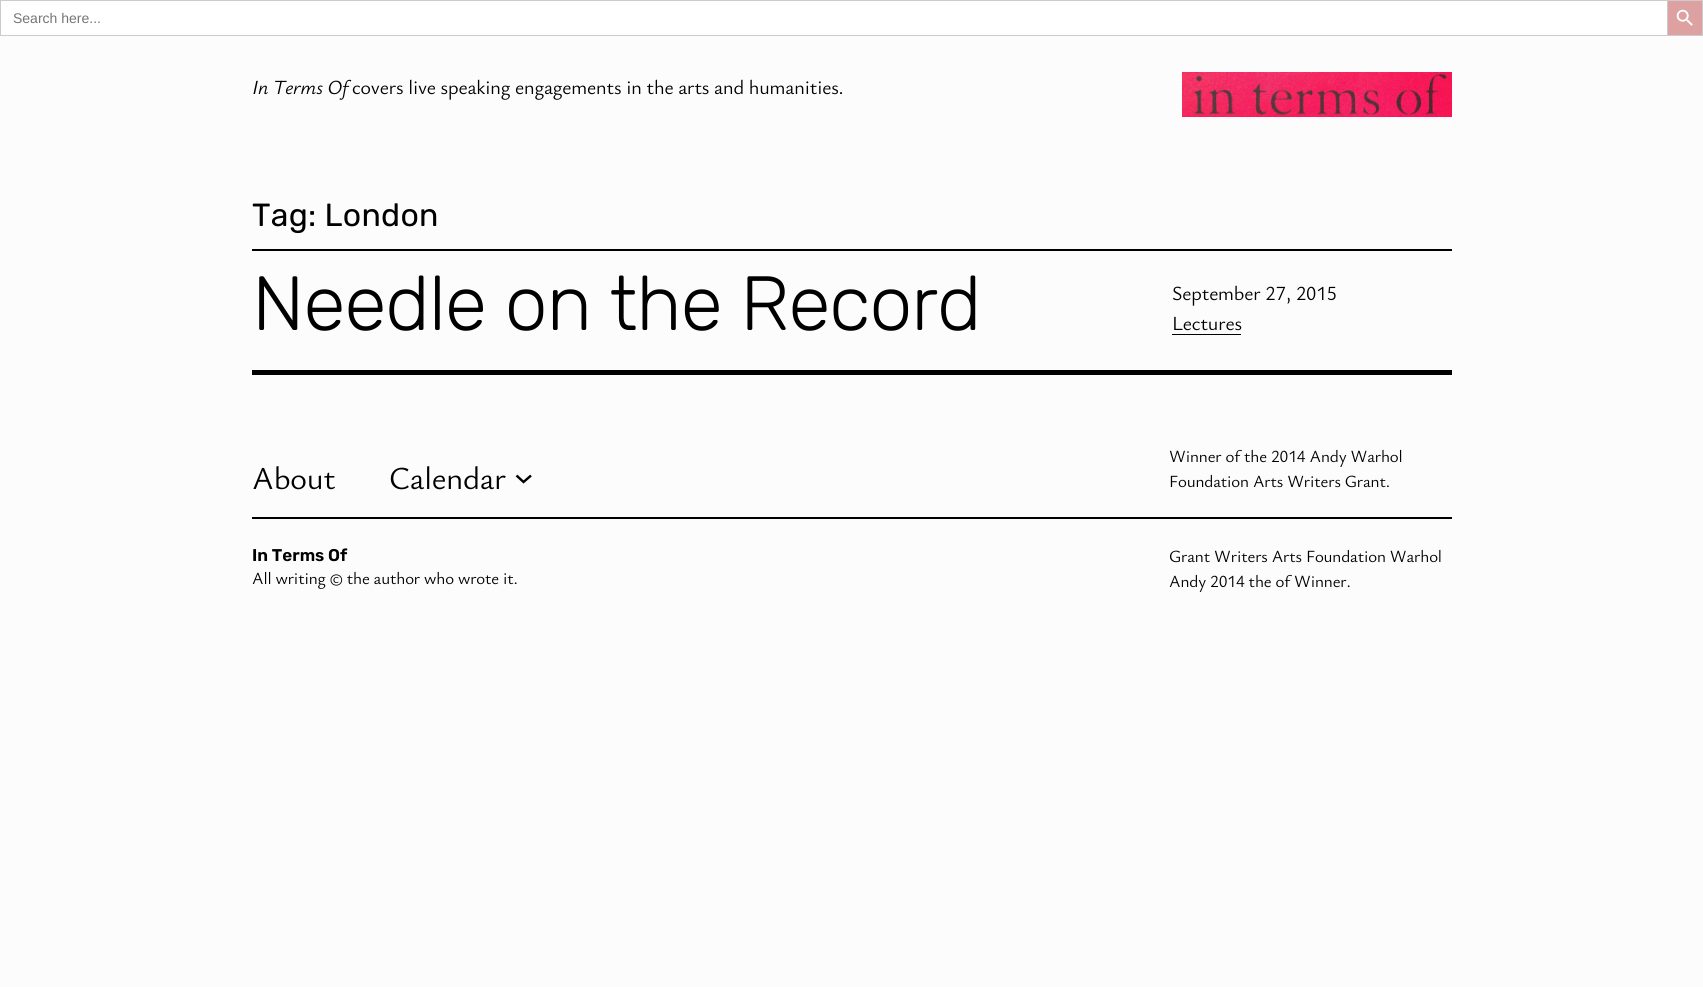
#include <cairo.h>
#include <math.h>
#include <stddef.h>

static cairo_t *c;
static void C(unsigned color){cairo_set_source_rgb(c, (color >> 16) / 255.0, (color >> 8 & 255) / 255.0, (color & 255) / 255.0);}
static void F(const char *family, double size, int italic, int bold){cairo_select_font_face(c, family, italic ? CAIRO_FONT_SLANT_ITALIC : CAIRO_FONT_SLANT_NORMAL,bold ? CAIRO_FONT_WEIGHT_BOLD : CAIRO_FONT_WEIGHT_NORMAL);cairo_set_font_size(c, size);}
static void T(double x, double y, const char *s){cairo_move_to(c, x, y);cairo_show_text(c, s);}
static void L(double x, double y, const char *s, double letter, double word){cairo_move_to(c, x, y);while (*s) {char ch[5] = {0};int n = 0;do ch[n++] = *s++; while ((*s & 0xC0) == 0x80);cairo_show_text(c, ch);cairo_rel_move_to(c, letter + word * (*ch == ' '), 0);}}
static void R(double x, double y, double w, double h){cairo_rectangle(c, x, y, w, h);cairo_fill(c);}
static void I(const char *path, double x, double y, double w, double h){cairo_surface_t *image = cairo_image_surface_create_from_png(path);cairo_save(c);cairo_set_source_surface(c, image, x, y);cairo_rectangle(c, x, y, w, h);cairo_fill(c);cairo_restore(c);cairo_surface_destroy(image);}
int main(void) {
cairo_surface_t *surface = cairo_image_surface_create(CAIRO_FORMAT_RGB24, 1703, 987);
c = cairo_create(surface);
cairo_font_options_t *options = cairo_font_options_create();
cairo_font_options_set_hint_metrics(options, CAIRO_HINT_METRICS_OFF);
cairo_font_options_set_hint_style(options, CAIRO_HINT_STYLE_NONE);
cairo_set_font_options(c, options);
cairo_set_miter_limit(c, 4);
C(0xfcfcfc);
cairo_paint(c);
C(0xffffff);
R(1,1,1666,34);
C(0xcccccc);
R(0,0,1667,1);
R(0,35,1667,1);
R(0,0,1,36);
F("Liberation Sans",14,0,0);
C(0x757575);
T(13,23,"Search here...");
C(0xdda1a1);
cairo_rectangle(c,1667.5,.5,35,35);
cairo_fill_preserve(c);
C(0xcccccc);
cairo_set_line_width(c,1);
cairo_stroke(c);
I("1.png",1676,9,17,17);
F("Ysabeau Office",20,1,0);
C(0x000000);
L(252,94,"In Terms Of",-.15,0);
F("Ysabeau Office",20,0,0);
L(352,94,"covers live speaking engagements in the arts and humanities.",-.15,0);
I("2.png",1182,72,270,45);
F("Rubik",32,0,0);
L(252,226,"Tag: London",.25,0);
R(252,249,1200,2);
F("Rubik Light",76.75,0,0);
L(252,330,"Needle on the Record",-1,0);
F("Ysabeau Office",20,0,0);
L(1172,300,"September 27, 2015",-.15,0);
L(1172,330,"Lectures",-.15,0);
R(1172,334,69,1);
R(252,370,1200,5);
F("Ysabeau Office",32,0,0);
L(252,489,"About",-.15,0);
L(389,489,"Calendar",-.15,0);
cairo_new_path(c);
cairo_move_to(c,516.5,475.5);
cairo_line_to(c,523.5,482);
cairo_line_to(c,531,475.5);
cairo_set_line_width(c,2.4);
cairo_stroke(c);
F("Ysabeau Office",17,0,0);
L(1169,462,"Winner of the 2014 Andy Warhol",-.15,0);
L(1169,487,"Foundation Arts Writers Grant.",-.15,0);
R(252,517,1200,2);
F("Rubik SemiBold",17,0,0);
T(252,561,"In Terms Of");
F("Ysabeau Office",17,0,0);
L(252,584,"All writing © the author who wrote it.",-.15,0);
L(1169,562,"Grant Writers Arts Foundation Warhol",-.15,0);
L(1169,587,"Andy 2014 the of Winner.",-.15,0);
cairo_surface_write_to_png(surface, "o.png");
cairo_font_options_destroy(options);
cairo_destroy(c);
cairo_surface_destroy(surface);
return 0;
}
